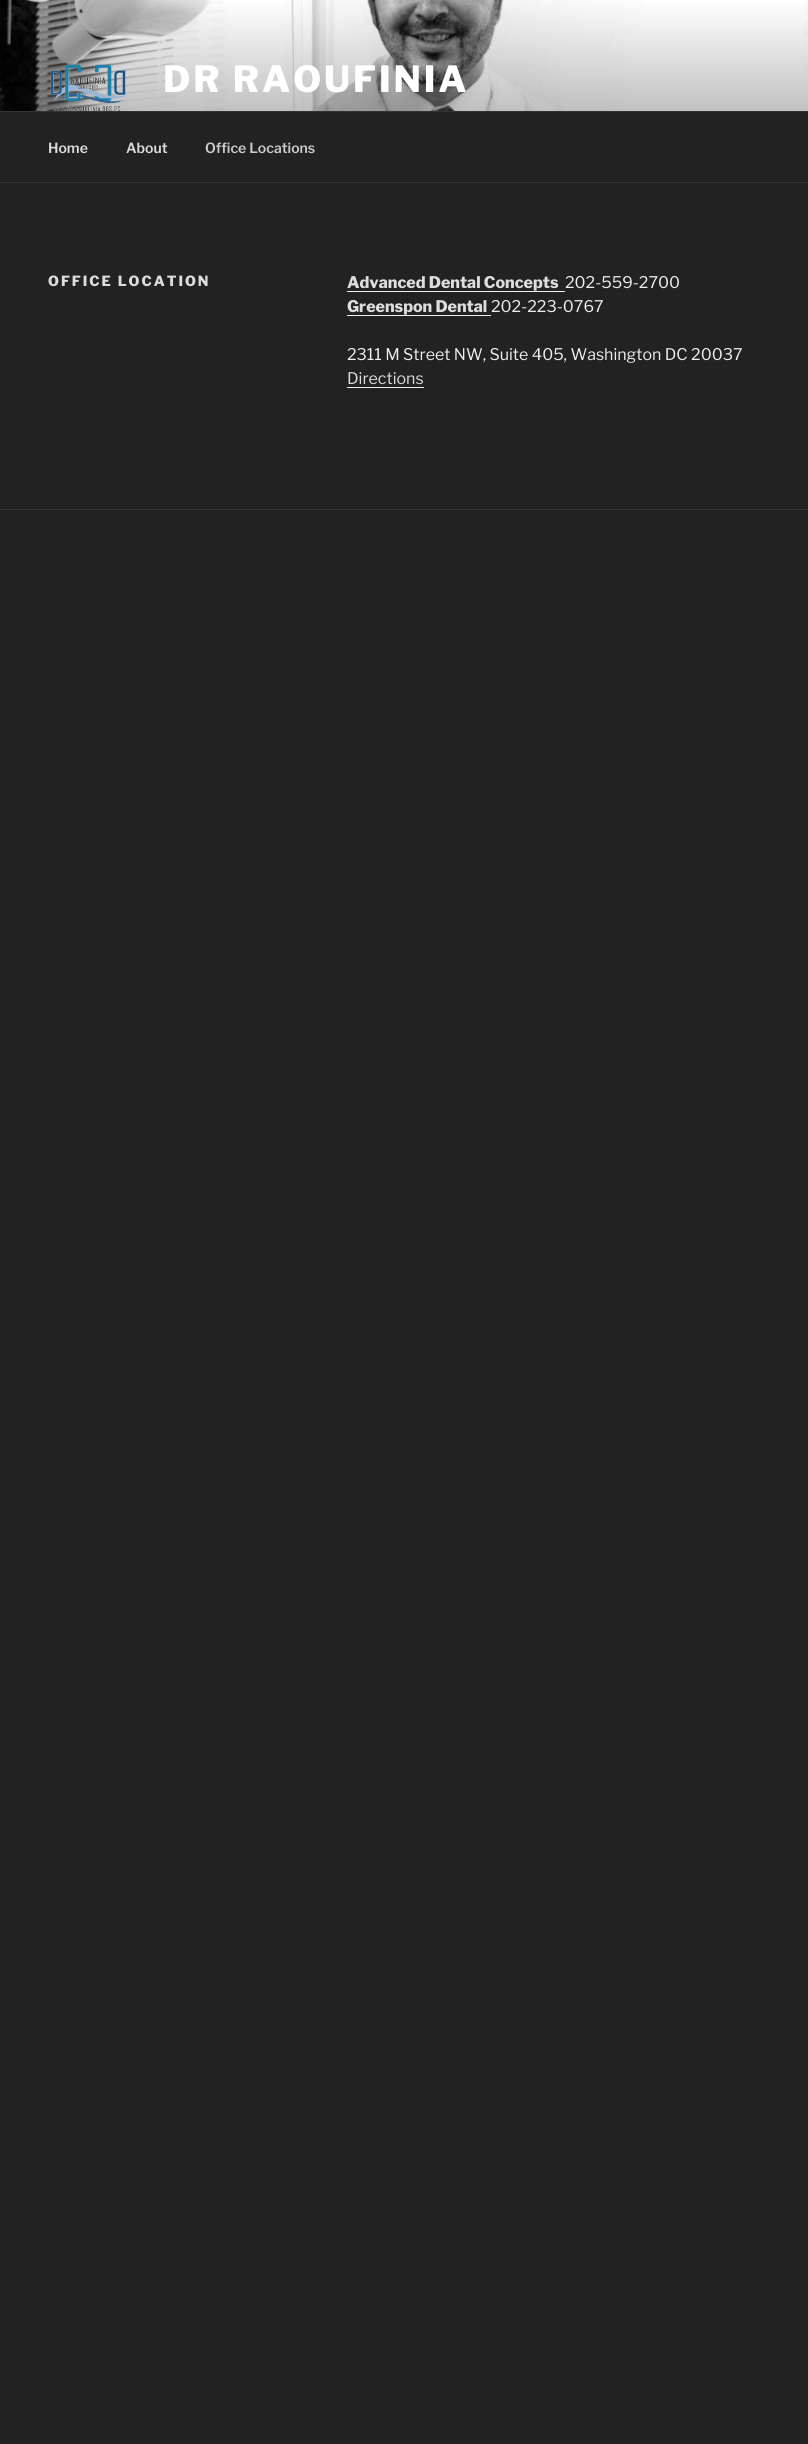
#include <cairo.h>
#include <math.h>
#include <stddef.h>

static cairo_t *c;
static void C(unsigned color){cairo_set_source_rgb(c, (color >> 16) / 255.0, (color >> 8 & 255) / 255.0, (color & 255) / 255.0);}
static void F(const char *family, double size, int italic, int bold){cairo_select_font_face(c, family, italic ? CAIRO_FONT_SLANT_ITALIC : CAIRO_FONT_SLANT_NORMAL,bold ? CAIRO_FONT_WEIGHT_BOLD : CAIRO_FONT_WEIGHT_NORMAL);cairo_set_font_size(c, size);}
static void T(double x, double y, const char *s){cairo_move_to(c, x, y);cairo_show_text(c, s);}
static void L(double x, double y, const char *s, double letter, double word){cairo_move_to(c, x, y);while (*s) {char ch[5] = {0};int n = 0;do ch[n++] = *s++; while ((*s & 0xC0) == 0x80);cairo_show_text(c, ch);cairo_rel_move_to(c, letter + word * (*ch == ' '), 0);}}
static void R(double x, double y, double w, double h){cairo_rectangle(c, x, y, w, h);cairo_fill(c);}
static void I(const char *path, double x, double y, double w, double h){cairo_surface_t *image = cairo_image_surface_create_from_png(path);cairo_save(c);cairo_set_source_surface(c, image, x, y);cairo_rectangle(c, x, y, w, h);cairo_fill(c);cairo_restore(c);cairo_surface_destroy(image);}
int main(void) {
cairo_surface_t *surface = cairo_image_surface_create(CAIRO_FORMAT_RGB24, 808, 2444);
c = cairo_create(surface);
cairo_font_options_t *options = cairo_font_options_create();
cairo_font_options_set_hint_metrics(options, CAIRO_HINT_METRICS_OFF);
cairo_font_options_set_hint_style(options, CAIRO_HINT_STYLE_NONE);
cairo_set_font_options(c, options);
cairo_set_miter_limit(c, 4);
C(0x222222);
cairo_paint(c);
I("1.png",0,0,808,111);
I("2.png",50,64,78,47);
F("Libre Franklin ExtraBold",36,0,0);
C(0xffffff);
L(163,92,"DR RAOUFINIA",2.9,0);
C(0x333333);
R(0,111,808,1);
R(0,182,808,1);
F("Libre Franklin SemiBold",14,0,0);
C(0xdddddd);
T(48,153,"Home");
T(126,153,"About");
C(0xcccccc);
T(205,153,"Office Locations");
F("Libre Franklin ExtraBold",14,0,0);
C(0xdddddd);
L(48,286,"OFFICE LOCATION",2,0);
F("Libre Franklin ExtraBold",16,0,0);
T(347,288,"Advanced Dental Concepts");
C(0xf0f0f0);
R(347,291,218,1);
F("Libre Franklin",16,0,0);
C(0xeeeeee);
T(565,288,"202-559-2700");
F("Libre Franklin ExtraBold",16,0,0);
C(0xdddddd);
T(347,312,"Greenspon Dental");
C(0xf0f0f0);
R(347,315,144,1);
F("Libre Franklin",16,0,0);
C(0xeeeeee);
T(491,312,"202-223-0767");
T(347,360,"2311 M Street NW, Suite 405, Washington DC 20037");
C(0xdddddd);
T(347,384,"Directions");
C(0xf0f0f0);
R(347,387,77,1);
C(0x333333);
R(0,509,808,1);
cairo_surface_write_to_png(surface, "o.png");
cairo_font_options_destroy(options);
cairo_destroy(c);
cairo_surface_destroy(surface);
return 0;
}
